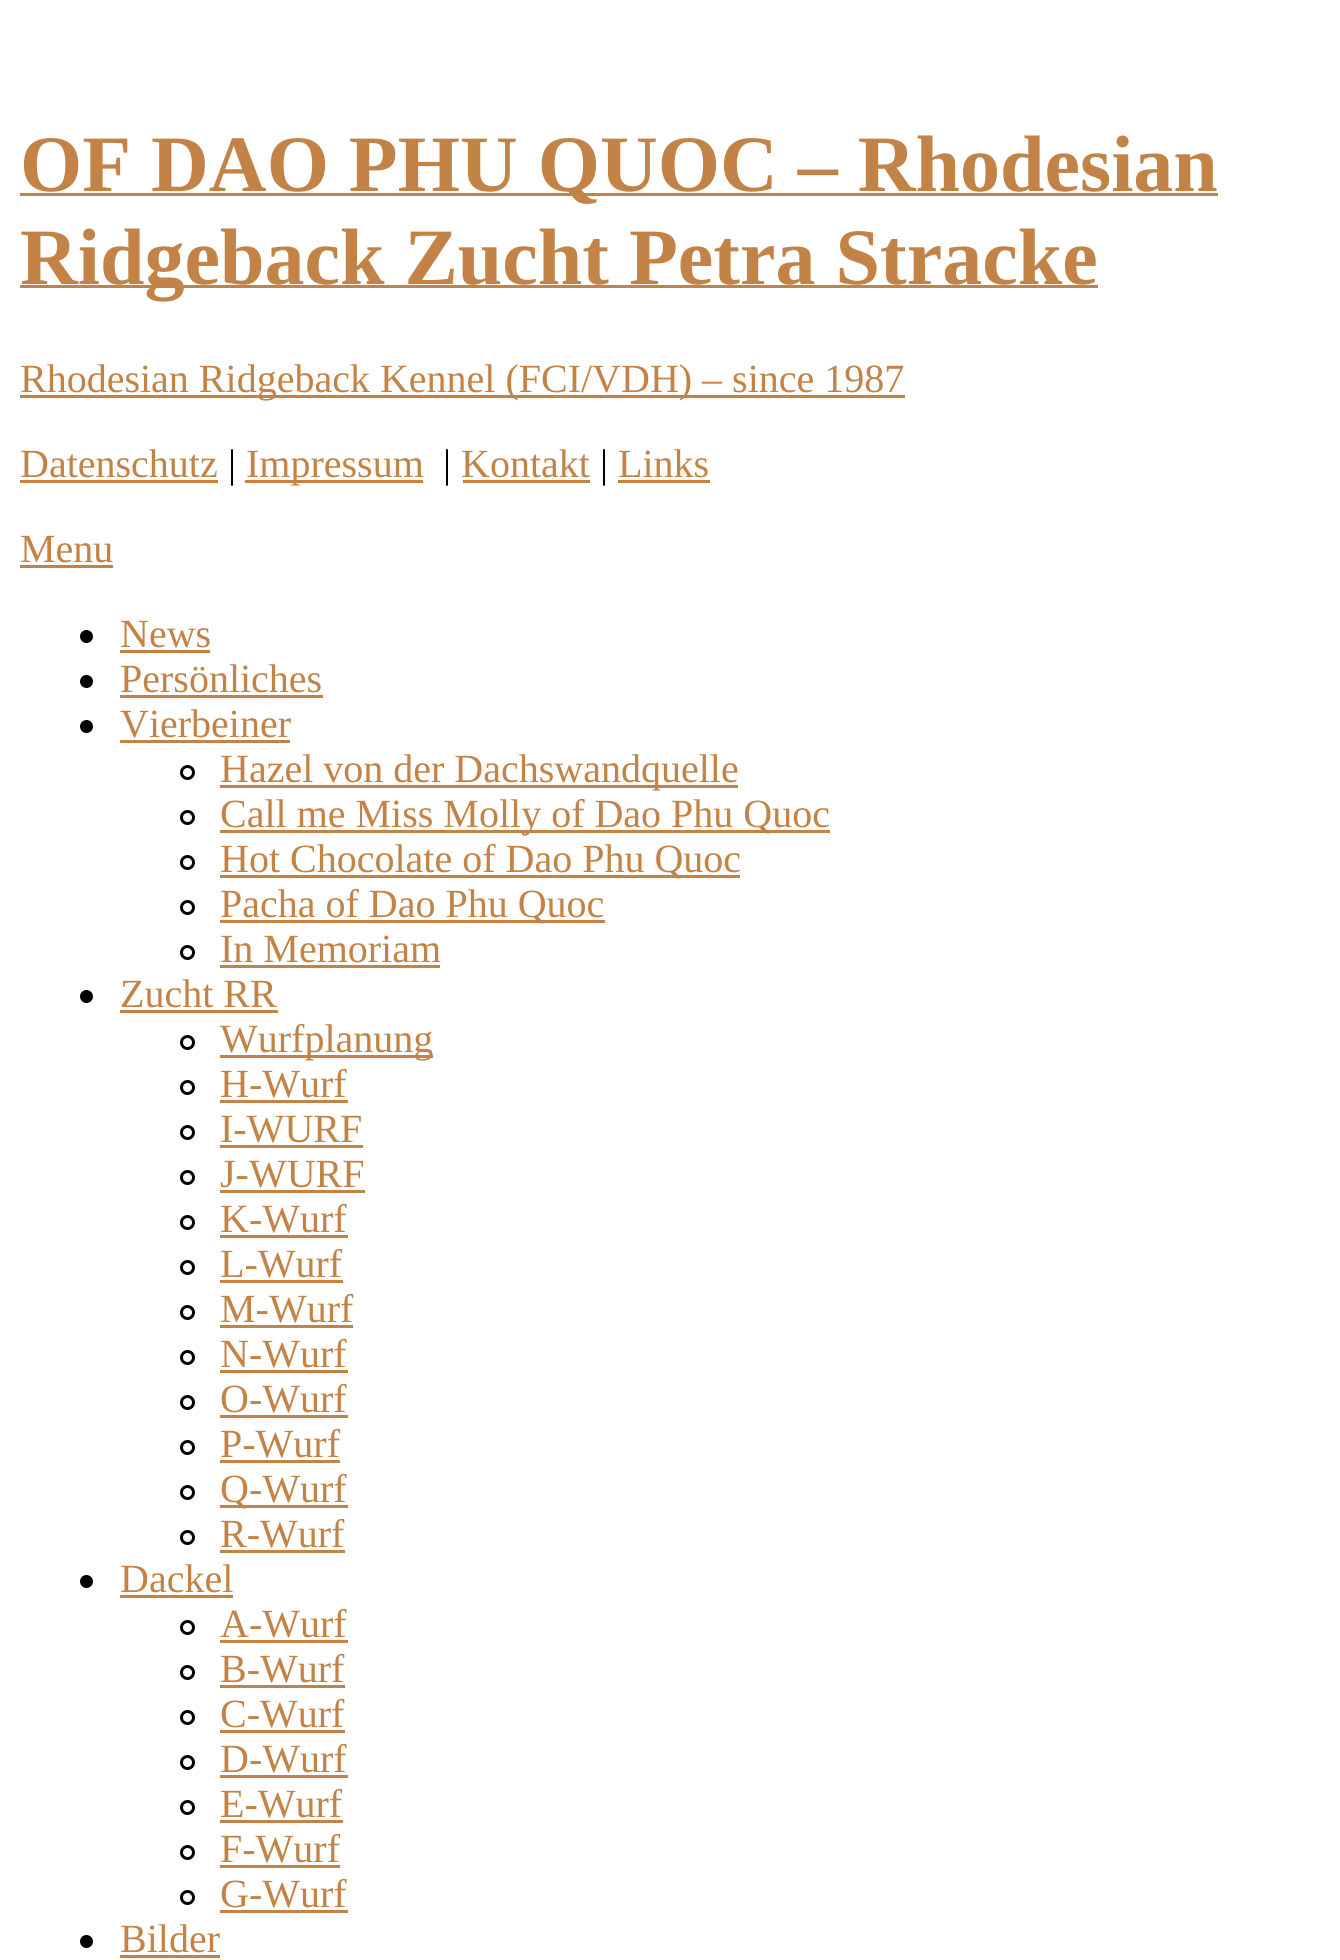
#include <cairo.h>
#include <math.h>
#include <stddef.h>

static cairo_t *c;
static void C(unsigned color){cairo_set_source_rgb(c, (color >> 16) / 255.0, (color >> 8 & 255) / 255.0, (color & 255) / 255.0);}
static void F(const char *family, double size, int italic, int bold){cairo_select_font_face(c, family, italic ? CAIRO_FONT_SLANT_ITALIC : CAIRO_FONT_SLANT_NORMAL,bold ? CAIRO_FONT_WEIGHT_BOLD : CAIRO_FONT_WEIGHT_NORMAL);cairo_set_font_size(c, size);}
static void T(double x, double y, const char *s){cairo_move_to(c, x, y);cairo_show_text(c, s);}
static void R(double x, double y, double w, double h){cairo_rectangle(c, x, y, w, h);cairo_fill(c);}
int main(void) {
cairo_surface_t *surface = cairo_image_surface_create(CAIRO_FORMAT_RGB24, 1340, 1960);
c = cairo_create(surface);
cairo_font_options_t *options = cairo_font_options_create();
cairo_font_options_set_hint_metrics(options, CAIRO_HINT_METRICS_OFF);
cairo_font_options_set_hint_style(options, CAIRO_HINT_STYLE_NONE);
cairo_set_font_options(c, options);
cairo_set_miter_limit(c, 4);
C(0xffffff);
cairo_paint(c);
C(0xc38346);
R(20,193,1198,3);
F("Liberation Serif",80,0,1);
T(20,191,"OF DAO PHU QUOC – Rhodesian");
R(20,285,1078,3);
T(20,284,"Ridgeback Zucht Petra Stracke");
R(20,395,885,3);
F("Liberation Serif",40,0,0);
T(20,392,"Rhodesian Ridgeback Kennel (FCI/VDH) – since 1987");
T(20,477,"Datenschutz");
R(20,480,198,3);
C(0x000000);
T(228,477,"|");
C(0xc38346);
R(245,480,178,3);
T(246,477,"Impressum");
C(0x000000);
T(443,477,"|");
C(0xc38346);
T(461,477,"Kontakt");
R(463,480,127,3);
C(0x000000);
T(600,477,"|");
C(0xc38346);
T(618,477,"Links");
R(618,480,92,3);
T(20,562,"Menu");
R(20,565,93,3);
C(0x000000);
cairo_new_path(c);
cairo_arc(c,86.5,636.5,6.5,0,2 * M_PI);
cairo_fill(c);
C(0xc38346);
T(120,647,"News");
R(120,650,90,3);
C(0x000000);
cairo_new_path(c);
cairo_arc(c,86.5,681.5,6.5,0,2 * M_PI);
cairo_fill(c);
C(0xc38346);
T(120,692,"Persönliches");
R(120,695,203,3);
C(0x000000);
cairo_new_path(c);
cairo_arc(c,86.5,726.5,6.5,0,2 * M_PI);
cairo_fill(c);
C(0xc38346);
T(120,737,"Vierbeiner");
R(120,740,170,3);
cairo_new_path(c);
cairo_arc(c,187.5,772.5,6,0,2 * M_PI);
C(0x000000);
cairo_set_line_width(c,3);
cairo_stroke(c);
C(0xc38346);
R(220,785,518,3);
T(220,782,"Hazel von der Dachswandquelle");
cairo_new_path(c);
cairo_arc(c,187.5,817.5,6,0,2 * M_PI);
C(0x000000);
cairo_stroke(c);
C(0xc38346);
R(220,830,610,3);
T(220,827,"Call me Miss Molly of Dao Phu Quoc");
cairo_new_path(c);
cairo_arc(c,187.5,862.5,6,0,2 * M_PI);
C(0x000000);
cairo_stroke(c);
C(0xc38346);
R(220,875,520,3);
T(220,872,"Hot Chocolate of Dao Phu Quoc");
cairo_new_path(c);
cairo_arc(c,187.5,907.5,6,0,2 * M_PI);
C(0x000000);
cairo_stroke(c);
C(0xc38346);
R(220,920,385,3);
T(220,917,"Pacha of Dao Phu Quoc");
cairo_new_path(c);
cairo_arc(c,187.5,952.5,6,0,2 * M_PI);
C(0x000000);
cairo_stroke(c);
C(0xc38346);
T(220,962,"In Memoriam");
R(220,965,220,3);
C(0x000000);
cairo_new_path(c);
cairo_arc(c,86.5,996.5,6.5,0,2 * M_PI);
cairo_fill(c);
C(0xc38346);
T(120,1007,"Zucht RR");
R(120,1010,158,3);
cairo_new_path(c);
cairo_arc(c,187.5,1042.5,6,0,2 * M_PI);
C(0x000000);
cairo_stroke(c);
C(0xc38346);
R(220,1055,213,3);
T(220,1052,"Wurfplanung");
cairo_new_path(c);
cairo_arc(c,187.5,1087.5,6,0,2 * M_PI);
C(0x000000);
cairo_stroke(c);
C(0xc38346);
T(220,1097,"H-Wurf");
R(220,1100,128,3);
cairo_new_path(c);
cairo_arc(c,187.5,1132.5,6,0,2 * M_PI);
C(0x000000);
cairo_stroke(c);
C(0xc38346);
T(220,1142,"I-WURF");
R(220,1145,143,3);
cairo_new_path(c);
cairo_arc(c,187.5,1177.5,6,0,2 * M_PI);
C(0x000000);
cairo_stroke(c);
C(0xc38346);
T(220,1187,"J-WURF");
R(220,1190,145,3);
cairo_new_path(c);
cairo_arc(c,187.5,1222.5,6,0,2 * M_PI);
C(0x000000);
cairo_stroke(c);
C(0xc38346);
T(220,1232,"K-Wurf");
R(220,1235,128,3);
cairo_new_path(c);
cairo_arc(c,187.5,1267.5,6,0,2 * M_PI);
C(0x000000);
cairo_stroke(c);
C(0xc38346);
T(220,1277,"L-Wurf");
R(220,1280,123,3);
cairo_new_path(c);
cairo_arc(c,187.5,1312.5,6,0,2 * M_PI);
C(0x000000);
cairo_stroke(c);
C(0xc38346);
T(220,1322,"M-Wurf");
R(220,1325,133,3);
cairo_new_path(c);
cairo_arc(c,187.5,1357.5,6,0,2 * M_PI);
C(0x000000);
cairo_stroke(c);
C(0xc38346);
T(220,1367,"N-Wurf");
R(220,1370,128,3);
cairo_new_path(c);
cairo_arc(c,187.5,1402.5,6,0,2 * M_PI);
C(0x000000);
cairo_stroke(c);
C(0xc38346);
T(220,1412,"O-Wurf");
R(220,1415,128,3);
cairo_new_path(c);
cairo_arc(c,187.5,1447.5,6,0,2 * M_PI);
C(0x000000);
cairo_stroke(c);
C(0xc38346);
T(220,1457,"P-Wurf");
R(220,1460,120,3);
cairo_new_path(c);
cairo_arc(c,187.5,1492.5,6,0,2 * M_PI);
C(0x000000);
cairo_stroke(c);
C(0xc38346);
R(220,1505,128,3);
T(220,1502,"Q-Wurf");
cairo_new_path(c);
cairo_arc(c,187.5,1537.5,6,0,2 * M_PI);
C(0x000000);
cairo_stroke(c);
C(0xc38346);
T(220,1547,"R-Wurf");
R(220,1550,125,3);
C(0x000000);
cairo_new_path(c);
cairo_arc(c,86.5,1581.5,6.5,0,2 * M_PI);
cairo_fill(c);
C(0xc38346);
T(120,1592,"Dackel");
R(120,1595,113,3);
cairo_new_path(c);
cairo_arc(c,187.5,1627.5,6,0,2 * M_PI);
C(0x000000);
cairo_stroke(c);
C(0xc38346);
T(220,1637,"A-Wurf");
R(220,1640,128,3);
cairo_new_path(c);
cairo_arc(c,187.5,1672.5,6,0,2 * M_PI);
C(0x000000);
cairo_stroke(c);
C(0xc38346);
T(220,1682,"B-Wurf");
R(220,1685,125,3);
cairo_new_path(c);
cairo_arc(c,187.5,1717.5,6,0,2 * M_PI);
C(0x000000);
cairo_stroke(c);
C(0xc38346);
T(220,1727,"C-Wurf");
R(220,1730,125,3);
cairo_new_path(c);
cairo_arc(c,187.5,1762.5,6,0,2 * M_PI);
C(0x000000);
cairo_stroke(c);
C(0xc38346);
T(220,1772,"D-Wurf");
R(220,1775,128,3);
cairo_new_path(c);
cairo_arc(c,187.5,1807.5,6,0,2 * M_PI);
C(0x000000);
cairo_stroke(c);
C(0xc38346);
T(220,1817,"E-Wurf");
R(220,1820,123,3);
cairo_new_path(c);
cairo_arc(c,187.5,1852.5,6,0,2 * M_PI);
C(0x000000);
cairo_stroke(c);
C(0xc38346);
T(220,1862,"F-Wurf");
R(220,1865,120,3);
cairo_new_path(c);
cairo_arc(c,187.5,1897.5,6,0,2 * M_PI);
C(0x000000);
cairo_stroke(c);
C(0xc38346);
T(220,1907,"G-Wurf");
R(220,1910,128,3);
C(0x000000);
cairo_new_path(c);
cairo_arc(c,86.5,1941.5,6.5,0,2 * M_PI);
cairo_fill(c);
C(0xc38346);
T(120,1952,"Bilder");
R(120,1955,100,3);
cairo_surface_write_to_png(surface, "o.png");
cairo_font_options_destroy(options);
cairo_destroy(c);
cairo_surface_destroy(surface);
return 0;
}
